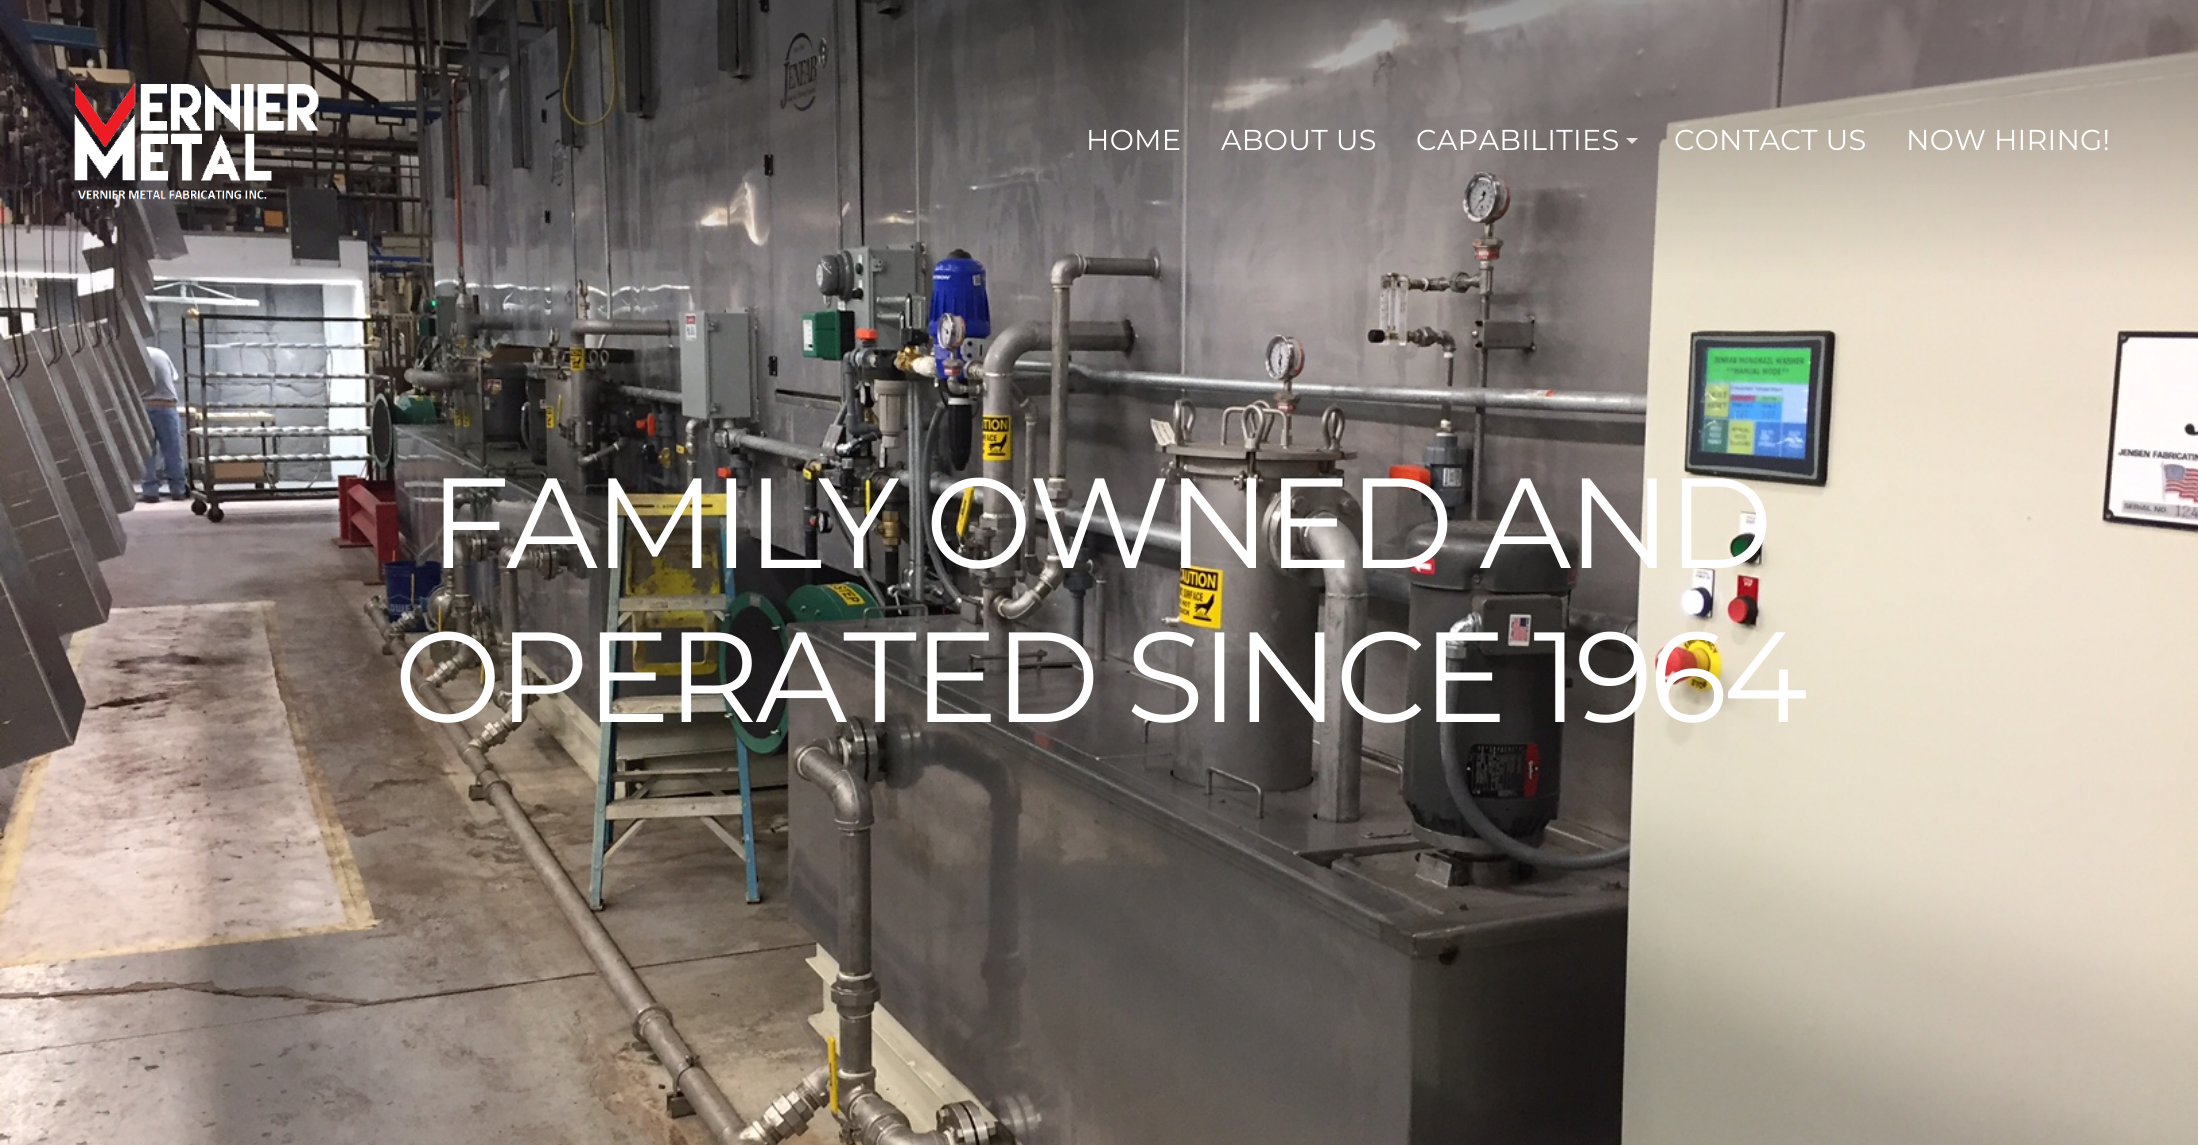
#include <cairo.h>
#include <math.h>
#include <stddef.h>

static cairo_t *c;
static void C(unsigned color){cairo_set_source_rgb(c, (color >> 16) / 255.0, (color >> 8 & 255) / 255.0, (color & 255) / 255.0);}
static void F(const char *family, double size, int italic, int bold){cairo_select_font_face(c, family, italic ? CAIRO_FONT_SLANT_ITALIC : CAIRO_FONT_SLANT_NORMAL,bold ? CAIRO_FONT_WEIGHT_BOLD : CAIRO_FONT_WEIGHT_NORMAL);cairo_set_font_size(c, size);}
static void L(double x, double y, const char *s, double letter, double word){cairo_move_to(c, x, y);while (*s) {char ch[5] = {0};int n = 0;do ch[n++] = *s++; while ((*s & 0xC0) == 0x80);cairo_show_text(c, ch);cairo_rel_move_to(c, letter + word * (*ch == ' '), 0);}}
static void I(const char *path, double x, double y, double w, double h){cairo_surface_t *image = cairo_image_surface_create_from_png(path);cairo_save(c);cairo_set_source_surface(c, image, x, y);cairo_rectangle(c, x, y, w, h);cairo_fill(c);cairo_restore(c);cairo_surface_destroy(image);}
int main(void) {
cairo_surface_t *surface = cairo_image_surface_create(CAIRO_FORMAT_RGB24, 2198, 1145);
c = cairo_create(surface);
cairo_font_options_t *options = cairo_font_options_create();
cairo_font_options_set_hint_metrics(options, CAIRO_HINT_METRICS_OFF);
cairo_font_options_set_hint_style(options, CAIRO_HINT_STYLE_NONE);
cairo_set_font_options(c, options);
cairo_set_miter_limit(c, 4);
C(0xffffff);
cairo_paint(c);
I("2.png",0,0,2198,1145);
I("1.png",74,82,245,118);
F("Montserrat",28.75,0,0);
C(0xffffff);
L(1086,150,"HOME",.25,0);
L(1221,150,"ABOUT US",.25,0);
L(1416,150,"CAPABILITIES",.25,0);
cairo_set_source_rgba(c,1,1,1,0.8);
cairo_new_path(c);
cairo_move_to(c,1626,138);
cairo_line_to(c,1638,138);
cairo_line_to(c,1632,144);
cairo_close_path(c);
cairo_fill(c);
C(0xffffff);
L(1674,150,"CONTACT US",.25,0);
L(1906,150,"NOW HIRING!",.25,0);
F("Montserrat",128,0,0);
L(429,568,"FAMILY OWNED AND",-4,0);
L(394,722,"OPERATED SINCE 1964",-4,0);
cairo_surface_write_to_png(surface, "o.png");
cairo_font_options_destroy(options);
cairo_destroy(c);
cairo_surface_destroy(surface);
return 0;
}
